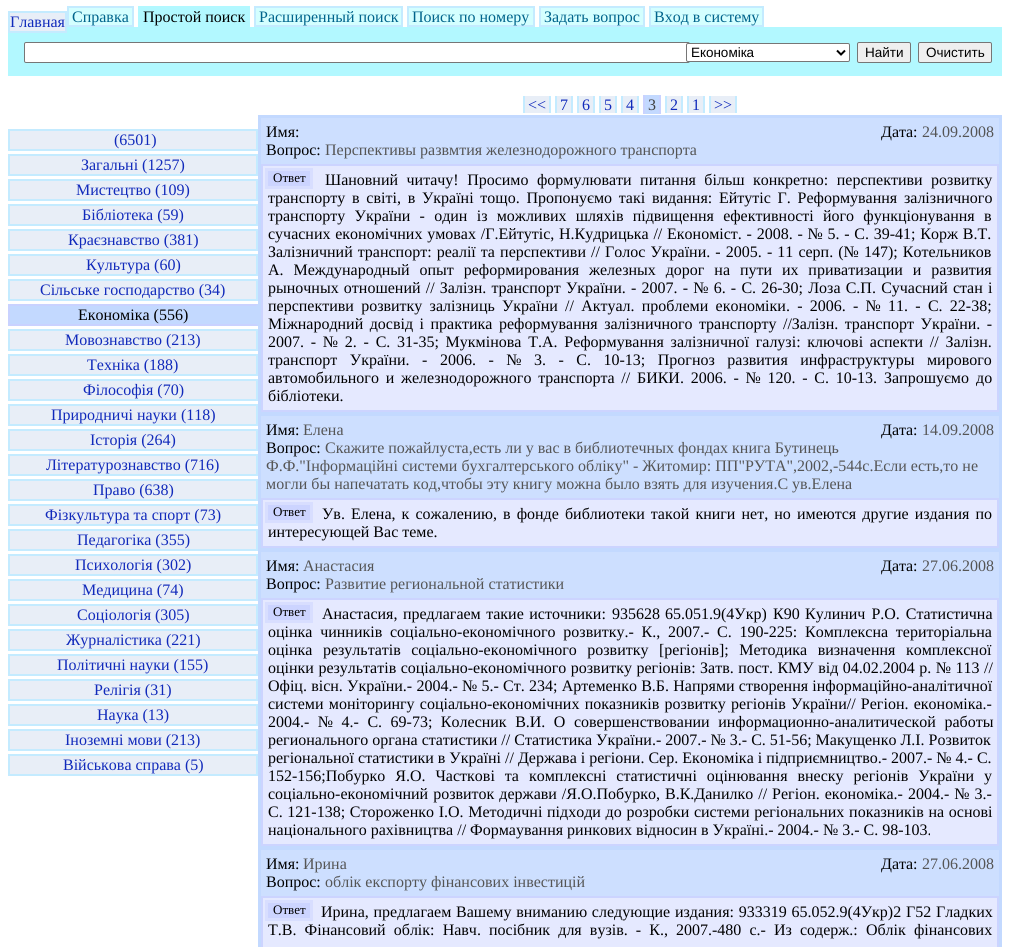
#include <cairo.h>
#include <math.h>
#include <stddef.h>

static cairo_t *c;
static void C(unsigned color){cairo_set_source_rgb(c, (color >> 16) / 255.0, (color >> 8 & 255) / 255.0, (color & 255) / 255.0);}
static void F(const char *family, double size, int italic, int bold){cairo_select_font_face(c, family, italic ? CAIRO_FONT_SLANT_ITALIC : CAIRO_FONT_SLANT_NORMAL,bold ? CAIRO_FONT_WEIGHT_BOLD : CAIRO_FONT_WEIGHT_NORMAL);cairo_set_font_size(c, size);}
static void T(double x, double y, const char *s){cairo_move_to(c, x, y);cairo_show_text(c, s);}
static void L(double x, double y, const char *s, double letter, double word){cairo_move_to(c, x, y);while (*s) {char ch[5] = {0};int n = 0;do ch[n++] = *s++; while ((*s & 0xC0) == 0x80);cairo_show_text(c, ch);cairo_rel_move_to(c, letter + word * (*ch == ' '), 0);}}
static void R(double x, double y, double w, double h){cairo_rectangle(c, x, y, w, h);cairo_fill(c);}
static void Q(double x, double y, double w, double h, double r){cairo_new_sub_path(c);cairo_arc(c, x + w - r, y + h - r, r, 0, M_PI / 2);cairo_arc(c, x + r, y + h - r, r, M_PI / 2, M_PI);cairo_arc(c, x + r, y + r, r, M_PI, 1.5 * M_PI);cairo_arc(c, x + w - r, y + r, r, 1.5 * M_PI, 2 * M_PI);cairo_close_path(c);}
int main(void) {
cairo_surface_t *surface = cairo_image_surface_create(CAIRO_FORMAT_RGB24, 1010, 947);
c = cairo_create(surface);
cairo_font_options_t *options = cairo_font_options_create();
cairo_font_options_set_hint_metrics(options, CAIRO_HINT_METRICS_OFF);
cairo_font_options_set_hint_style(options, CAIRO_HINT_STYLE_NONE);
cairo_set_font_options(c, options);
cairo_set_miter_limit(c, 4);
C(0xffffff);
cairo_paint(c);
C(0xb2f8ff);
R(8,27,994,49);
C(0xe8eef7);
cairo_rectangle(c,9,12,57,20);
cairo_fill_preserve(c);
C(0xc4ebff);
cairo_stroke(c);
F("Liberation Serif",16,0,0);
C(0x112abb);
T(10,27,"Главная");
C(0xd4ffff);
cairo_rectangle(c,68,7,65,19);
cairo_fill_preserve(c);
C(0xc4ebff);
cairo_stroke(c);
C(0x00648c);
T(72,22,"Справка");
C(0xb2f8ff);
R(138,6,112,21);
C(0x000000);
T(143,22,"Простой поиск");
C(0xd4ffff);
cairo_rectangle(c,255,7,147,19);
cairo_fill_preserve(c);
C(0xc4ebff);
cairo_stroke(c);
C(0x00648c);
T(259,22,"Расширенный поиск");
C(0xd4ffff);
cairo_rectangle(c,408,7,126,19);
cairo_fill_preserve(c);
C(0xc4ebff);
cairo_stroke(c);
C(0x00648c);
T(412,22,"Поиск по номеру");
C(0xd4ffff);
cairo_rectangle(c,540,7,104,19);
cairo_fill_preserve(c);
C(0xc4ebff);
cairo_stroke(c);
C(0x00648c);
T(544,22,"Задать вопрос");
C(0xd4ffff);
cairo_rectangle(c,650,7,113,19);
cairo_fill_preserve(c);
C(0xc4ebff);
cairo_stroke(c);
C(0x00648c);
T(654,22,"Вход в систему");
C(0xffffff);
Q(24.5,42.5,665,20,1.5);
cairo_fill_preserve(c);
C(0x767676);
cairo_set_line_width(c,1);
cairo_stroke(c);
C(0xffffff);
Q(686.5,43.5,163,18,1.5);
cairo_fill_preserve(c);
C(0x767676);
cairo_stroke(c);
cairo_new_path(c);
cairo_move_to(c,837,50.5);
cairo_line_to(c,841,54.5);
cairo_line_to(c,845,50.5);
C(0x000000);
cairo_set_line_width(c,2);
cairo_stroke(c);
F("Liberation Sans",13.5,0,0);
T(691,57,"Економіка");
C(0xefefef);
Q(857.5,42.5,53,20,1.5);
cairo_fill_preserve(c);
C(0x767676);
cairo_set_line_width(c,1);
cairo_stroke(c);
C(0x000000);
T(865,57,"Найти");
C(0xefefef);
Q(918.5,42.5,73,20,1.5);
cairo_fill_preserve(c);
C(0x767676);
cairo_stroke(c);
C(0x000000);
T(926,57,"Очистить");
C(0xe8eef7);
cairo_rectangle(c,9,130,248,20);
cairo_fill_preserve(c);
C(0xc4ebff);
cairo_set_line_width(c,2);
cairo_stroke(c);
F("Liberation Serif",16,0,0);
C(0x112abb);
T(114,145,"(6501)");
C(0xe8eef7);
cairo_rectangle(c,9,155,248,20);
cairo_fill_preserve(c);
C(0xc4ebff);
cairo_stroke(c);
C(0x112abb);
T(81,170,"Загальні (1257)");
C(0xe8eef7);
cairo_rectangle(c,9,180,248,20);
cairo_fill_preserve(c);
C(0xc4ebff);
cairo_stroke(c);
C(0x112abb);
T(76,195,"Мистецтво (109)");
C(0xe8eef7);
cairo_rectangle(c,9,205,248,20);
cairo_fill_preserve(c);
C(0xc4ebff);
cairo_stroke(c);
C(0x112abb);
T(82,220,"Бібліотека (59)");
C(0xe8eef7);
cairo_rectangle(c,9,230,248,20);
cairo_fill_preserve(c);
C(0xc4ebff);
cairo_stroke(c);
C(0x112abb);
T(68,245,"Краєзнавство (381)");
C(0xe8eef7);
cairo_rectangle(c,9,255,248,20);
cairo_fill_preserve(c);
C(0xc4ebff);
cairo_stroke(c);
C(0x112abb);
T(86,270,"Культура (60)");
C(0xe8eef7);
cairo_rectangle(c,9,280,248,20);
cairo_fill_preserve(c);
C(0xc4ebff);
cairo_stroke(c);
C(0x112abb);
T(40,295,"Сільське господарство (34)");
C(0xc3d9ff);
R(10,304,248,22);
C(0xc9d2ff);
cairo_new_path(c);
cairo_move_to(c,8,304);
cairo_line_to(c,258,304);
cairo_line_to(c,256,306);
cairo_line_to(c,10,306);
cairo_close_path(c);
cairo_fill(c);
cairo_new_path(c);
cairo_move_to(c,258,326);
cairo_line_to(c,8,326);
cairo_line_to(c,10,324);
cairo_line_to(c,256,324);
cairo_close_path(c);
cairo_fill(c);
R(8,304,2,22);
C(0x000000);
T(78,320,"Економіка (556)");
C(0xe8eef7);
cairo_rectangle(c,9,330,248,20);
cairo_fill_preserve(c);
C(0xc4ebff);
cairo_stroke(c);
C(0x112abb);
T(65,345,"Мовознавство (213)");
C(0xe8eef7);
cairo_rectangle(c,9,355,248,20);
cairo_fill_preserve(c);
C(0xc4ebff);
cairo_stroke(c);
C(0x112abb);
T(87,370,"Техніка (188)");
C(0xe8eef7);
cairo_rectangle(c,9,380,248,20);
cairo_fill_preserve(c);
C(0xc4ebff);
cairo_stroke(c);
C(0x112abb);
T(83,395,"Філософія (70)");
C(0xe8eef7);
cairo_rectangle(c,9,405,248,20);
cairo_fill_preserve(c);
C(0xc4ebff);
cairo_stroke(c);
C(0x112abb);
T(51,420,"Природничі науки (118)");
C(0xe8eef7);
cairo_rectangle(c,9,430,248,20);
cairo_fill_preserve(c);
C(0xc4ebff);
cairo_stroke(c);
C(0x112abb);
T(90,445,"Історія (264)");
C(0xe8eef7);
cairo_rectangle(c,9,455,248,20);
cairo_fill_preserve(c);
C(0xc4ebff);
cairo_stroke(c);
C(0x112abb);
T(46,470,"Літературознавство (716)");
C(0xe8eef7);
cairo_rectangle(c,9,480,248,20);
cairo_fill_preserve(c);
C(0xc4ebff);
cairo_stroke(c);
C(0x112abb);
T(93,495,"Право (638)");
C(0xe8eef7);
cairo_rectangle(c,9,505,248,20);
cairo_fill_preserve(c);
C(0xc4ebff);
cairo_stroke(c);
C(0x112abb);
T(45,520,"Фізкультура та спорт (73)");
C(0xe8eef7);
cairo_rectangle(c,9,530,248,20);
cairo_fill_preserve(c);
C(0xc4ebff);
cairo_stroke(c);
C(0x112abb);
T(77,545,"Педагогіка (355)");
C(0xe8eef7);
cairo_rectangle(c,9,555,248,20);
cairo_fill_preserve(c);
C(0xc4ebff);
cairo_stroke(c);
C(0x112abb);
T(75,570,"Психологія (302)");
C(0xe8eef7);
cairo_rectangle(c,9,580,248,20);
cairo_fill_preserve(c);
C(0xc4ebff);
cairo_stroke(c);
C(0x112abb);
T(82,595,"Медицина (74)");
C(0xe8eef7);
cairo_rectangle(c,9,605,248,20);
cairo_fill_preserve(c);
C(0xc4ebff);
cairo_stroke(c);
C(0x112abb);
T(77,620,"Соціологія (305)");
C(0xe8eef7);
cairo_rectangle(c,9,630,248,20);
cairo_fill_preserve(c);
C(0xc4ebff);
cairo_stroke(c);
C(0x112abb);
T(66,645,"Журналістика (221)");
C(0xe8eef7);
cairo_rectangle(c,9,655,248,20);
cairo_fill_preserve(c);
C(0xc4ebff);
cairo_stroke(c);
C(0x112abb);
T(57,670,"Політичні науки (155)");
C(0xe8eef7);
cairo_rectangle(c,9,680,248,20);
cairo_fill_preserve(c);
C(0xc4ebff);
cairo_stroke(c);
C(0x112abb);
T(94,695,"Релігія (31)");
C(0xe8eef7);
cairo_rectangle(c,9,705,248,20);
cairo_fill_preserve(c);
C(0xc4ebff);
cairo_stroke(c);
C(0x112abb);
T(97,720,"Наука (13)");
C(0xe8eef7);
cairo_rectangle(c,9,730,248,20);
cairo_fill_preserve(c);
C(0xc4ebff);
cairo_stroke(c);
C(0x112abb);
T(65,745,"Іноземні мови (213)");
C(0xe8eef7);
cairo_rectangle(c,9,755,248,20);
cairo_fill_preserve(c);
C(0xc4ebff);
cairo_stroke(c);
C(0x112abb);
T(63,770,"Військова справа (5)");
C(0xe8eef7);
R(525,96,24,17);
C(0x112abb);
T(528,110,"<<");
C(0xc4ebff);
R(549,96,2,17);
R(523,96,2,17);
C(0xe8eef7);
R(557,96,14,17);
C(0x112abb);
T(560,110,"7");
C(0xc4ebff);
R(571,96,2,17);
R(555,96,2,17);
C(0xe8eef7);
R(579,96,14,17);
C(0x112abb);
T(582,110,"6");
C(0xc4ebff);
R(593,96,2,17);
R(577,96,2,17);
C(0xe8eef7);
R(601,96,14,17);
C(0x112abb);
T(604,110,"5");
C(0xc4ebff);
R(615,96,2,17);
R(599,96,2,17);
C(0xe8eef7);
R(623,96,14,17);
C(0x112abb);
T(626,110,"4");
C(0xc4ebff);
R(637,96,2,17);
R(621,96,2,17);
C(0xc3d9ff);
R(645,95,14,19);
C(0x3f3f3f);
T(648,110,"3");
C(0xc9d2ff);
R(659,95,2,19);
R(643,95,2,19);
C(0xe8eef7);
R(667,96,14,17);
C(0x112abb);
T(670,110,"2");
C(0xc4ebff);
R(681,96,2,17);
R(665,96,2,17);
C(0xe8eef7);
R(689,96,14,17);
C(0x112abb);
T(692,110,"1");
C(0xc4ebff);
R(703,96,2,17);
R(687,96,2,17);
C(0xe8eef7);
R(711,96,24,17);
C(0x112abb);
T(714,110,">>");
C(0xc4ebff);
R(735,96,2,17);
R(709,96,2,17);
C(0xc3d9ff);
R(258,115,744,832);
C(0xcddfff);
R(261,118,738,46);
C(0x000000);
T(266,137,"Имя:");
T(266,155,"Вопрос:");
C(0x555555);
T(325,155,"Перспективы развмтия железнодорожного транспорта");
C(0x000000);
T(881,137,"Дата:");
C(0x555555);
T(922,137,"24.09.2008");
C(0xe5e9ff);
cairo_rectangle(c,262,165,736,246);
cairo_fill_preserve(c);
C(0xccd4ff);
cairo_stroke(c);
cairo_rectangle(c,266.5,169.5,45,18);
cairo_fill_preserve(c);
C(0xd8deff);
cairo_set_line_width(c,3);
cairo_stroke(c);
F("Liberation Serif",13,0,0);
C(0x000000);
T(273,182,"Ответ");
F("Liberation Serif",16,0,0);
L(325,185,"Шановний читачу! Просимо формулювати питання більш конкретно: перспективи розвитку",0,4.5);
L(268,203,"транспорту в світі, в Україні тощо. Пропонуємо такі видання: Ейтутіс Г. Реформування залізничного",0,2.75);
L(268,221,"транспорту України - один із можливих шляхів підвищення ефективності його функціонування в",0,5.25);
L(268,239,"сучасних економічних умовах /Г.Ейтутіс, Н.Кудрицька // Економіст. - 2008. - № 5. - С. 39-41; Корж В.Т.",0,.75);
L(268,257,"Залізничний транспорт: реалії та перспективи // Голос України. - 2005. - 11 серп. (№ 147); Котельников",0,1.1);
L(268,275,"А. Международный опыт реформирования железных дорог на пути их приватизации и развития",0,5.9);
L(268,293,"рыночных отношений // Залізн. транспорт України. - 2007. - № 6. - С. 26-30; Лоза С.П. Сучасний стан і",0,1.2);
L(268,311,"перспективи розвитку залізниць України // Актуал. проблеми економіки. - 2006. - № 11. - С. 22-38;",0,3.25);
L(268,329,"Міжнародний досвід і практика реформування залізничного транспорту //Залізн. транспорт України. -",0,2.5);
L(268,347,"2007. - № 2. - С. 31-35; Мукмінова Т.А. Реформування залізничної галузі: ключові аспекти // Залізн.",0,2.75);
L(268,365,"транспорт України. - 2006. - № 3. - С. 10-13; Прогноз развития инфраструктуры мирового",0,8.5);
L(268,383,"автомобильного и железнодорожного транспорта // БИКИ. 2006. - № 120. - С. 10-13.",0,2.75);
L(884,383,"Запрошуємо до",0,3);
T(268,401,"бібліотеки.");
C(0xcddfff);
R(261,416,738,82);
C(0x000000);
T(266,435,"Имя:");
C(0x555555);
T(303,435,"Елена");
C(0x000000);
T(266,453,"Вопрос:");
C(0x555555);
T(325,453,"Скажите пожайлуста,есть ли у вас в библиотечных фондах книга Бутинець");
T(266,471,"Ф.Ф.\"Інформаційні системи бухгалтерського обліку\" - Житомир: ПП\"РУТА\",2002,-544с.Если есть,то не");
T(266,489,"могли бы напечатать код,чтобы эту книгу можна было взять для изучения.С ув.Елена");
C(0x000000);
T(881,435,"Дата:");
C(0x555555);
T(922,435,"14.09.2008");
C(0xe5e9ff);
cairo_rectangle(c,262,499,736,48);
cairo_fill_preserve(c);
C(0xccd4ff);
cairo_set_line_width(c,2);
cairo_stroke(c);
cairo_rectangle(c,266.5,503.5,45,18);
cairo_fill_preserve(c);
C(0xd8deff);
cairo_set_line_width(c,3);
cairo_stroke(c);
F("Liberation Serif",13,0,0);
C(0x000000);
T(273,516,"Ответ");
F("Liberation Serif",16,0,0);
L(322,519,"Ув. Елена, к сожалению, в фонде библиотеки такой книги нет, но имеются другие издания по",0,2.1);
T(268,537,"интересующей Вас теме.");
C(0xcddfff);
R(261,552,738,46);
C(0x000000);
T(266,571,"Имя:");
C(0x555555);
T(303,571,"Анастасия");
C(0x000000);
T(266,589,"Вопрос:");
C(0x555555);
T(325,589,"Развитие региональной статистики");
C(0x000000);
T(881,571,"Дата:");
C(0x555555);
T(922,571,"27.06.2008");
C(0xe5e9ff);
cairo_rectangle(c,262,599,736,246);
cairo_fill_preserve(c);
C(0xccd4ff);
cairo_set_line_width(c,2);
cairo_stroke(c);
cairo_rectangle(c,266.5,603.5,45,18);
cairo_fill_preserve(c);
C(0xd8deff);
cairo_set_line_width(c,3);
cairo_stroke(c);
F("Liberation Serif",13,0,0);
C(0x000000);
T(273,616,"Ответ");
F("Liberation Serif",16,0,0);
L(322,619,"Анастасия, предлагаем такие источники:",0,1.5);
T(612,619,"935628");
T(665,619,"65.051.9(4Укр)");
T(773,619,"К90");
L(805,619,"Кулинич Р.О. Статистична",0,2);
L(268,637,"оцінка чинників соціально-економічного розвитку.- К., 2007.- С. 190-225: Комплексна територіальна",0,3.75);
L(268,655,"оцінка результатів соціально-економічного розвитку [регіонів]; Методика визначення комплексної",0,6.5);
L(268,673,"оцінки результатів соціально-економічного розвитку регіонів: Затв. пост. КМУ від 04.02.2004 р. № 113 //",0,.5);
L(268,691,"Офіц. вісн. України.- 2004.- № 5.- Ст. 234; Артеменко В.Б. Напрями створення інформаційно-аналітичної",0,.25);
L(268,709,"системи моніторингу соціально-економічних показників розвитку регіонів України// Регіон. економіка.-",0,1.25);
L(268,727,"2004.- № 4.- С. 69-73; Колесник В.И. О совершенствовании информационно-аналитической работы",0,4.5);
T(268,745,"регионального органа статистики // Статистика України.- 2007.- № 3.- С. 51-56; Макущенко Л.І. Розвиток");
T(268,763,"регіональної статистики в Україні // Держава і регіони. Сер. Економіка і підприємництво.- 2007.- № 4.- С.");
L(268,781,"152-156;Побурко Я.О. Часткові та комплексні статистичні оцінювання внеску регіонів України у",0,6);
L(268,799,"соціально-економічний розвиток держави /Я.О.Побурко, В.К.Данилко // Регіон. економіка.- 2004.- № 3.-",0,1);
L(268,817,"С. 121-138; Стороженко І.О. Методичні підходи до розробки системи регіональних показників на основі",0,.7);
T(268,835,"національного рахівництва // Формаування ринкових відносин в Україні.- 2004.- № 3.- С. 98-103.");
C(0xcddfff);
R(261,850,738,46);
C(0x000000);
T(266,869,"Имя:");
C(0x555555);
T(303,869,"Ирина");
C(0x000000);
T(266,887,"Вопрос:");
C(0x555555);
T(325,887,"облік експорту фінансових інвестицій");
C(0x000000);
T(881,869,"Дата:");
C(0x555555);
T(922,869,"27.06.2008");
C(0xe5e9ff);
cairo_rectangle(c,262,897,736,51);
cairo_fill_preserve(c);
C(0xccd4ff);
cairo_set_line_width(c,2);
cairo_stroke(c);
cairo_rectangle(c,266.5,901.5,45,18);
cairo_fill_preserve(c);
C(0xd8deff);
cairo_set_line_width(c,3);
cairo_stroke(c);
F("Liberation Serif",13,0,0);
C(0x000000);
T(273,914,"Ответ");
F("Liberation Serif",16,0,0);
L(321,917,"Ирина, предлагаем Вашему вниманию следующие издания: 933319 65.052.9(4Укр)2 Г52 Гладких",0,.75);
L(268,935,"Т.В. Фінансовий облік: Навч. посібник для вузів. - К., 2007.-480 с.- Из содерж.: Облік фінансових",0,4.1);
cairo_surface_write_to_png(surface, "o.png");
cairo_font_options_destroy(options);
cairo_destroy(c);
cairo_surface_destroy(surface);
return 0;
}
